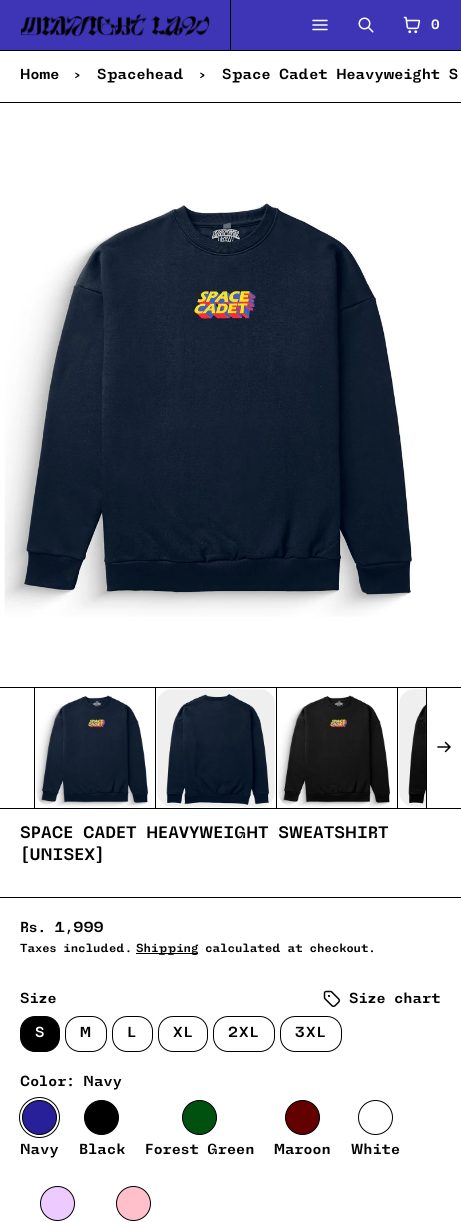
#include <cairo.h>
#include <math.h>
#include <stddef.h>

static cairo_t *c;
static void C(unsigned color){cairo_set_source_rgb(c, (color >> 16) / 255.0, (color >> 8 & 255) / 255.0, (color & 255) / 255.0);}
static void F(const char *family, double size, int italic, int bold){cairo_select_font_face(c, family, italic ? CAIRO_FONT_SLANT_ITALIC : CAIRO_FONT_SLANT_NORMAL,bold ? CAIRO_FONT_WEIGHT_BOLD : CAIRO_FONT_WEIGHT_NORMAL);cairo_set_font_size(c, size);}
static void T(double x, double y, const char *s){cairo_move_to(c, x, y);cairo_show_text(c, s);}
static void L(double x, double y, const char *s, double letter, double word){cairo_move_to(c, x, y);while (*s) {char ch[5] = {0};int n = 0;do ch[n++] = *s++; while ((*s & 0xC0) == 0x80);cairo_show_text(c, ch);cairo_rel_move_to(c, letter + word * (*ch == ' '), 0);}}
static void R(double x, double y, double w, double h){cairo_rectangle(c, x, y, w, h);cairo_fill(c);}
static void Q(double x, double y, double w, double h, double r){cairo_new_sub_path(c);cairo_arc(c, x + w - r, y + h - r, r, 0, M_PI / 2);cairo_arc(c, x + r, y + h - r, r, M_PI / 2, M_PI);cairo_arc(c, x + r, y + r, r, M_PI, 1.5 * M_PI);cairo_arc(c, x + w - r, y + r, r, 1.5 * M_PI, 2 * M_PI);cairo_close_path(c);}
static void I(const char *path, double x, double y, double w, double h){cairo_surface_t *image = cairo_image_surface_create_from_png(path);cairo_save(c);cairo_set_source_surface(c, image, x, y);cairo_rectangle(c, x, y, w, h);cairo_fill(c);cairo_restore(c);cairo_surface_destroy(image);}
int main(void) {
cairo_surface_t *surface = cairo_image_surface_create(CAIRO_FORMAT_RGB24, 461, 1222);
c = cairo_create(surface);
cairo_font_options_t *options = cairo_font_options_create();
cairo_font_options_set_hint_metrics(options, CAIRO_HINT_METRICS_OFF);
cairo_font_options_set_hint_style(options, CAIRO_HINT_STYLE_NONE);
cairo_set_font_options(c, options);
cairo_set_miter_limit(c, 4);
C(0xffffff);
cairo_paint(c);
C(0x3e35b6);
R(0,0,461,50);
C(0x000000);
R(0,50,230,1);
I("1.png",20,14,190,23);
cairo_rectangle(c,230.5,-.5,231,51);
cairo_set_line_width(c,1);
cairo_stroke(c);
cairo_new_path(c);
cairo_move_to(c,313,25);
cairo_line_to(c,327,25);
cairo_move_to(c,313,20.5);
cairo_line_to(c,327,20.5);
cairo_move_to(c,313,29.5);
cairo_line_to(c,327,29.5);
C(0xffffff);
cairo_set_line_width(c,1.5);
cairo_set_line_cap(c,CAIRO_LINE_CAP_ROUND);
cairo_set_line_join(c,CAIRO_LINE_JOIN_ROUND);
cairo_stroke(c);
I("2.png",358,17,16,16);
I("3.png",403,16,18,18);
F("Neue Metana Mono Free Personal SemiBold",13,0,0);
L(431,29,"0",1,0);
C(0x000000);
R(0,102,461,1);
F("Neue Metana Mono Free Personal SemiBold",14,0,0);
C(0x000001);
T(20,79,"Home");
T(73,79,"›");
T(97,79,"Spacehead");
T(198,79,"›");
T(222,79,"Space Cadet Heavyweight S");
C(0x000000);
R(0,808,461,1);
I("4.png",4,202,408,415);
R(0,687,461,1);
R(426,688,1,120);
R(34,688,1,120);
I("5.png",36,695,113,112);
cairo_save(c);
cairo_rectangle(c,35,688,391,120);
cairo_clip(c);
cairo_rectangle(c,155.5,687.5,121,121);
cairo_set_line_width(c,1);
cairo_set_line_cap(c,CAIRO_LINE_CAP_BUTT);
cairo_set_line_join(c,CAIRO_LINE_JOIN_MITER);
cairo_stroke(c);
cairo_restore(c);
I("6.png",157,689,118,118);
cairo_save(c);
cairo_rectangle(c,35,688,391,120);
cairo_clip(c);
cairo_rectangle(c,276.5,687.5,121,121);
cairo_set_line_width(c,1);
cairo_set_line_cap(c,CAIRO_LINE_CAP_BUTT);
cairo_set_line_join(c,CAIRO_LINE_JOIN_MITER);
cairo_stroke(c);
cairo_restore(c);
I("7.png",278,695,113,112);
I("8.png",399,689,27,118);
cairo_new_path(c);
cairo_move_to(c,438,747);
cairo_line_to(c,450,747);
cairo_move_to(c,450,747);
cairo_line_to(c,445.5,742.5);
cairo_move_to(c,450,747);
cairo_line_to(c,445.5,751.5);
cairo_stroke(c);
F("Neue Metana Mono Free Personal SemiBold",16,0,0);
C(0x000001);
T(20,838,"SPACE CADET HEAVYWEIGHT SWEATSHIRT");
T(20,860,"[UNISEX]");
C(0x000000);
R(0,897,461,1);
F("Neue Metana Mono Free Personal SemiBold",14,0,0);
C(0x000001);
T(20,932,"Rs. 1,999");
F("Neue Metana Mono Free Personal SemiBold",11.25,0,0);
T(20,952,"Taxes included.");
R(136,953,62,1);
T(136,952,"Shipping");
T(205,952,"calculated at checkout.");
F("Neue Metana Mono Free Personal SemiBold",14,0,0);
T(20,1003,"Size");
I("9.png",323,990,18,18);
T(349,1003,"Size chart");
C(0x000000);
Q(20.5,1016.5,39,35,14.5);
cairo_fill_preserve(c);
cairo_set_line_width(c,1);
cairo_set_line_cap(c,CAIRO_LINE_CAP_BUTT);
cairo_set_line_join(c,CAIRO_LINE_JOIN_MITER);
cairo_stroke(c);
C(0xffffff);
L(35,1037,"S",1,0);
Q(65.5,1016.5,41,35,14.5);
C(0x000000);
cairo_stroke(c);
C(0x000001);
L(80,1037,"M",1,0);
Q(112.5,1016.5,40,35,14.5);
C(0x000000);
cairo_stroke(c);
C(0x000001);
L(127,1037,"L",1,0);
Q(158.5,1016.5,49,35,14.5);
C(0x000000);
cairo_stroke(c);
C(0x000001);
L(173,1037,"XL",1,0);
Q(213.5,1016.5,61,35,14.5);
C(0x000000);
cairo_stroke(c);
C(0x000001);
L(228,1037,"2XL",1,0);
Q(280.5,1016.5,61,35,14.5);
C(0x000000);
cairo_stroke(c);
C(0x000001);
L(295,1037,"3XL",1,0);
T(20,1086,"Color: Navy");
C(0x282099);
cairo_new_path(c);
cairo_arc(c,39.5,1117.5,17,0,2 * M_PI);
cairo_fill_preserve(c);
C(0x000000);
cairo_stroke(c);
cairo_arc(c,39.5,1117.5,20,0,2 * M_PI);
cairo_stroke(c);
C(0x000001);
T(20,1154,"Navy");
C(0x000000);
cairo_new_path(c);
cairo_arc(c,101.5,1117.5,17,0,2 * M_PI);
cairo_fill_preserve(c);
cairo_stroke(c);
C(0x000001);
T(79,1154,"Black");
C(0x00500f);
cairo_new_path(c);
cairo_arc(c,199.5,1117.5,17,0,2 * M_PI);
cairo_fill_preserve(c);
C(0x000000);
cairo_stroke(c);
C(0x000001);
T(145,1154,"Forest Green");
C(0x630000);
cairo_new_path(c);
cairo_arc(c,302.5,1117.5,17,0,2 * M_PI);
cairo_fill_preserve(c);
C(0x000000);
cairo_stroke(c);
C(0x000001);
T(274,1154,"Maroon");
cairo_new_path(c);
cairo_arc(c,375.5,1117.5,17,0,2 * M_PI);
C(0x000000);
cairo_stroke(c);
C(0x000001);
T(351,1154,"White");
C(0xedcaff);
cairo_new_path(c);
cairo_arc(c,57.5,1203.5,17,0,2 * M_PI);
cairo_fill_preserve(c);
C(0x000000);
cairo_stroke(c);
C(0xffc0cb);
cairo_arc(c,133.5,1203.5,17,0,2 * M_PI);
cairo_fill_preserve(c);
C(0x000000);
cairo_stroke(c);
cairo_surface_write_to_png(surface, "o.png");
cairo_font_options_destroy(options);
cairo_destroy(c);
cairo_surface_destroy(surface);
return 0;
}
